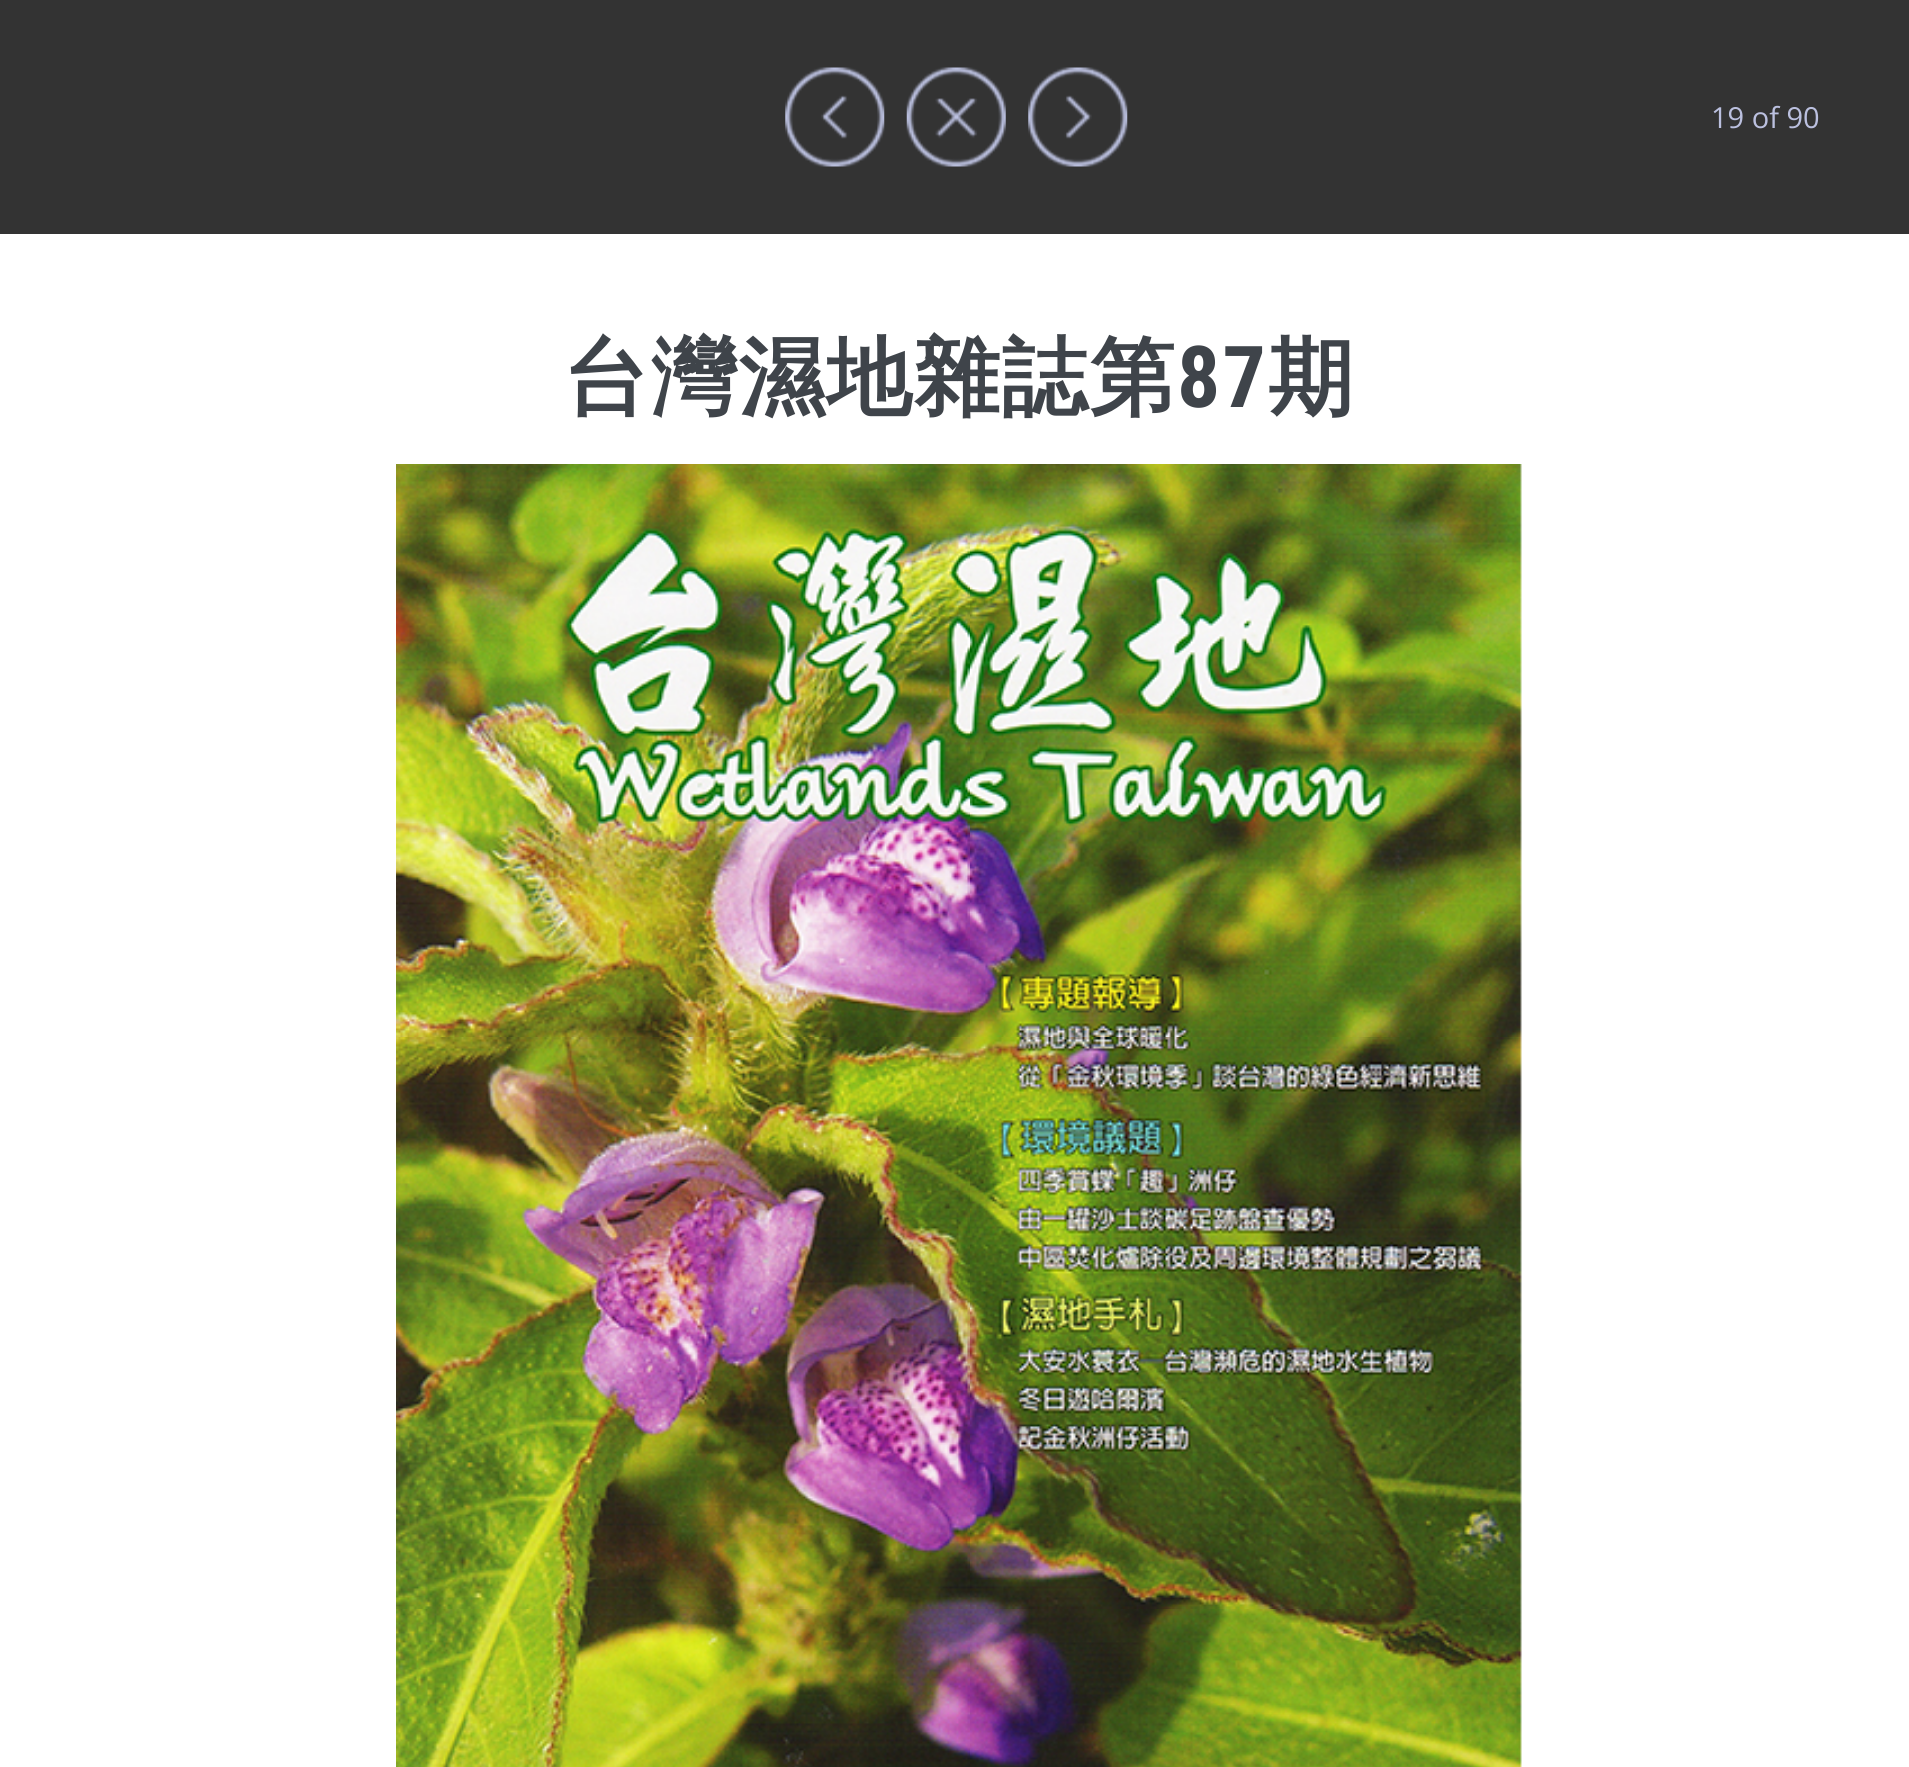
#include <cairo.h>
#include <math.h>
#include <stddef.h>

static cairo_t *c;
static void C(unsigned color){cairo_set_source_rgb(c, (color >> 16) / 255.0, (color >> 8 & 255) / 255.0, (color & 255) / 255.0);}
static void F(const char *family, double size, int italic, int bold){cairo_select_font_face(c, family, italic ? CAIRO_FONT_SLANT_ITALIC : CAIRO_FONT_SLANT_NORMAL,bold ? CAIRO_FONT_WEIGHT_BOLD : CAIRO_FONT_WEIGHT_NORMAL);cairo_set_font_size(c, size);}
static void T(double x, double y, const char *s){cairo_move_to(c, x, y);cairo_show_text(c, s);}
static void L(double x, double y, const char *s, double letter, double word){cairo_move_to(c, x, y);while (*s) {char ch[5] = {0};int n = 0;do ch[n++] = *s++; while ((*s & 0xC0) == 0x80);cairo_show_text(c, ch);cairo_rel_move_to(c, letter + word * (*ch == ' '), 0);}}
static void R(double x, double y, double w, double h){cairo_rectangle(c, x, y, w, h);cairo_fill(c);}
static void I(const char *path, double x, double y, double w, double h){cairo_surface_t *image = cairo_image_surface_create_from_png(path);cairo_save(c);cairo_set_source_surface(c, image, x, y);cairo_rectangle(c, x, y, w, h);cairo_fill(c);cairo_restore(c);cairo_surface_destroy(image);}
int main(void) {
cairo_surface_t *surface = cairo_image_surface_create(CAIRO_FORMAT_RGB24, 1909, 1767);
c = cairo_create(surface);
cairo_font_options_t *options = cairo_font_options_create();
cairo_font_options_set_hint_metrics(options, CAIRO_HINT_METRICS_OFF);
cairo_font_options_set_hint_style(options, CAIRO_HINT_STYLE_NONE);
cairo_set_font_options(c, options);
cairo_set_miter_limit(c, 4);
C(0xffffff);
cairo_paint(c);
C(0x333333);
R(0,0,1909,234);
I("1.png",785,67,100,100);
I("2.png",906,67,100,100);
I("3.png",1028,67,100,100);
F("Open Sans",29,0,0);
C(0xbbc0df);
T(1711,128,"19 of 90");
F("WenQuanYi Zen Hei",85.5,0,1);
C(0x3f444a);
L(563,407,"台灣濕地雜誌第",2.25,0);
F("Roboto Condensed",85.5,0,1);
L(1177,407,"87",2.25,0);
F("WenQuanYi Zen Hei",85.5,0,1);
L(1268,407,"期",2.25,0);
I("4.png",396,464,1126,1303);
cairo_surface_write_to_png(surface, "o.png");
cairo_font_options_destroy(options);
cairo_destroy(c);
cairo_surface_destroy(surface);
return 0;
}
